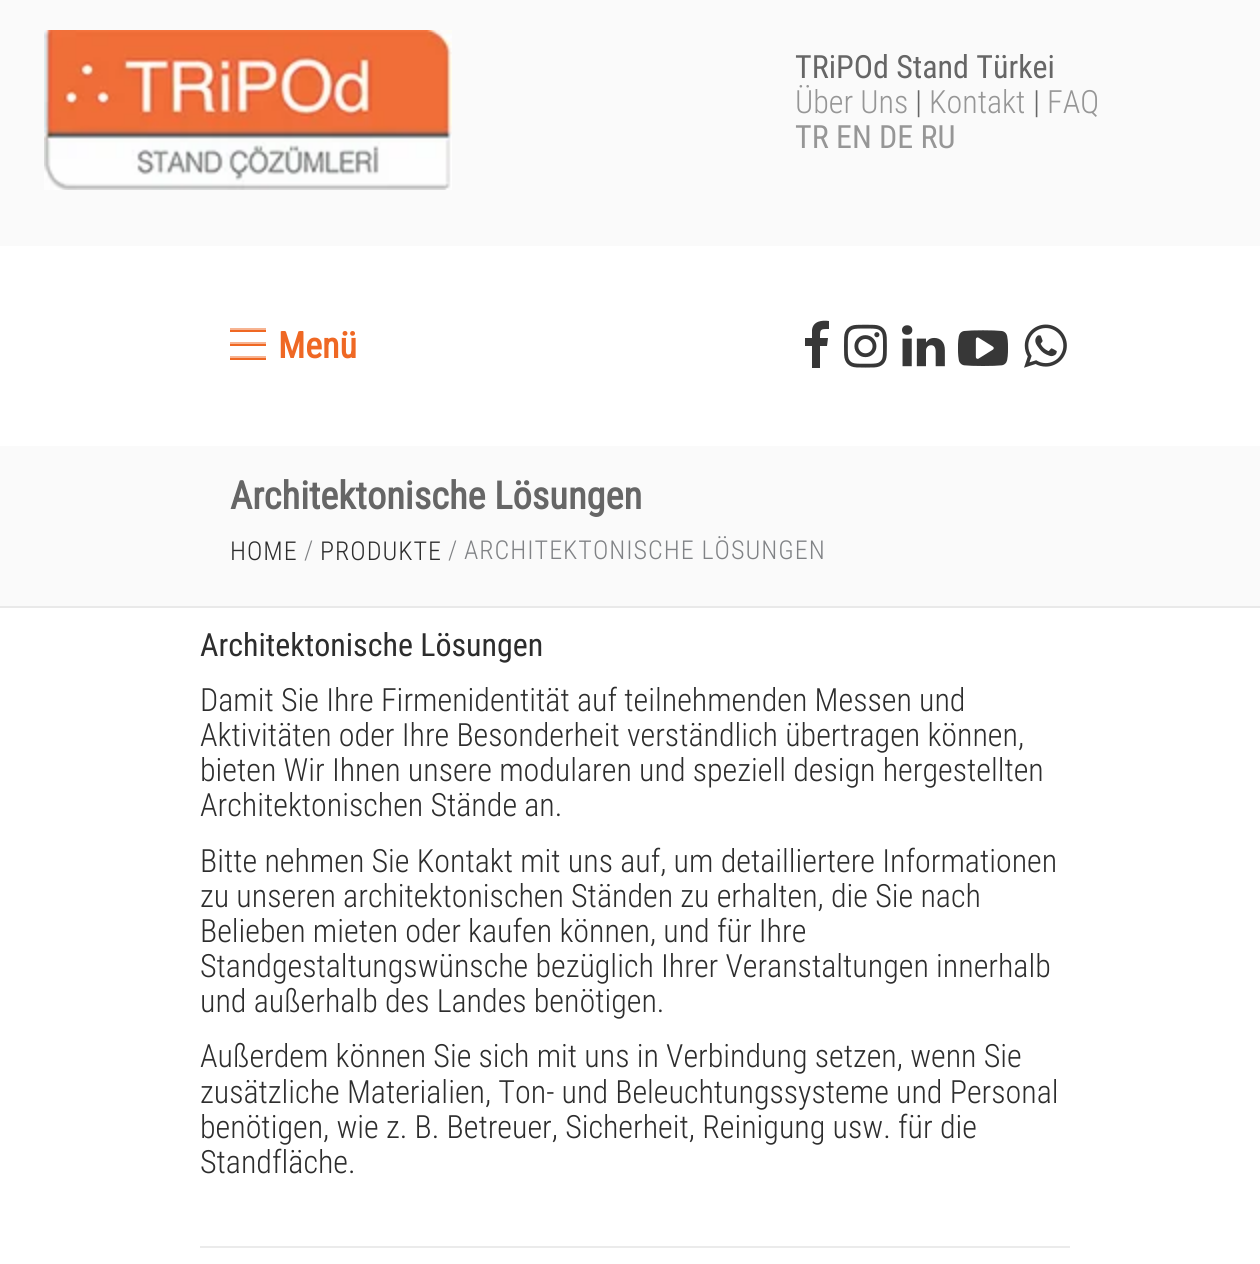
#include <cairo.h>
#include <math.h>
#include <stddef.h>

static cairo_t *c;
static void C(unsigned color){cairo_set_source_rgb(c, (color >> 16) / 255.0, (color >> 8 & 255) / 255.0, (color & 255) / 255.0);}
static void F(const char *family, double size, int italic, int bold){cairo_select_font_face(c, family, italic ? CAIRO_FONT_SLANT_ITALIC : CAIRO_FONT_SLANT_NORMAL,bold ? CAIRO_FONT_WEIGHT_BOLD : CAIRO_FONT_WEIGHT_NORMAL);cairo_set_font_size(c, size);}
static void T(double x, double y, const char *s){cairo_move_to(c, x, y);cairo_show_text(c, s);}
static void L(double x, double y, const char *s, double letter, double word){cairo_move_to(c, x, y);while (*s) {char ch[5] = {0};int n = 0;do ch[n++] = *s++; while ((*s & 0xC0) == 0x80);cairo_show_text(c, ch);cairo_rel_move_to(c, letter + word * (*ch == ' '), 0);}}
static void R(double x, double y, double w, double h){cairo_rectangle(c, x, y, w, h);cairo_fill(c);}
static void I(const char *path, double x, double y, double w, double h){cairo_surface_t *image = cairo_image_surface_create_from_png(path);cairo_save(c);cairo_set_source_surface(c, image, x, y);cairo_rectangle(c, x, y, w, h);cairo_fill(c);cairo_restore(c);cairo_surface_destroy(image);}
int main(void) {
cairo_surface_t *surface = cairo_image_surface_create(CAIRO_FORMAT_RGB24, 1260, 1264);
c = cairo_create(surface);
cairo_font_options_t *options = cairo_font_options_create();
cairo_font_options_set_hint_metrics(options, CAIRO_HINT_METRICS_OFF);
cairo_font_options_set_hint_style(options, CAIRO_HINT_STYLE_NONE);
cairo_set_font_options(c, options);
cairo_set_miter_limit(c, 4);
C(0xffffff);
cairo_paint(c);
C(0xfafafa);
R(0,0,1260,246);
I("1.png",44,30,408,160);
F("Roboto Condensed",32,0,0);
C(0x666666);
T(795,78,"TRiPOd Stand Türkei");
F("Roboto Condensed Light",32,0,0);
C(0x969696);
T(795,113,"Über Uns");
C(0x666666);
T(915,113,"|");
C(0x969696);
T(929,113,"Kontakt");
C(0x666666);
T(1033,113,"|");
C(0x969696);
T(1047,113,"FAQ");
F("Roboto Condensed",32,0,0);
T(795,148,"TR EN DE RU");
C(0xef6824);
R(230,330,36,2);
C(0xf7b492);
R(230,328,36,2);
C(0xef6824);
R(230,344,36,2);
C(0xf7b492);
R(230,342,36,2);
C(0xef6824);
R(230,358,36,2);
C(0xf7b492);
R(230,356,36,2);
F("Roboto Condensed",36,0,1);
C(0xef6824);
T(278,358,"Menü");
C(0x373737);
cairo_new_path(c);
cairo_move_to(c,829,321);
cairo_line_to(c,829,329);
cairo_curve_to(c,820,329,820,329,820,338);
cairo_line_to(c,828,338);
cairo_line_to(c,827,346);
cairo_line_to(c,820,346);
cairo_line_to(c,820,368);
cairo_line_to(c,812,368);
cairo_line_to(c,812,346);
cairo_line_to(c,805,346);
cairo_line_to(c,805,338);
cairo_line_to(c,812,338);
cairo_line_to(c,812,330);
cairo_curve_to(c,813,321,822,320,829,321);
cairo_close_path(c);
cairo_fill(c);
I("2.png",844,324,43,44);
I("3.png",902,325,43,42);
I("4.png",958,330,50,36);
I("5.png",1024,324,43,44);
C(0xfafafa);
R(0,446,1260,160);
C(0xe9e9e9);
R(0,606,1260,2);
F("Roboto Condensed",38.4,0,1);
C(0x666666);
T(230,509,"Architektonische Lösungen");
F("Roboto Condensed Light",26,0,0);
C(0x2d2d2d);
L(230,560,"HOME",1,0);
C(0x808285);
L(304,559,"/",1,0);
C(0x2d2d2d);
L(320,560,"PRODUKTE",1,0);
C(0x808285);
L(448,559,"/",1,0);
L(464,559,"ARCHITEKTONISCHE LÖSUNGEN",1,0);
F("Roboto Condensed",32,0,0);
C(0x2d2d2d);
T(200,656,"Architektonische Lösungen");
F("Roboto Condensed Light",32,0,0);
T(200,711,"Damit Sie Ihre Firmenidentität auf teilnehmenden Messen und");
T(200,746,"Aktivitäten oder Ihre Besonderheit verständlich übertragen können,");
T(200,781,"bieten Wir Ihnen unsere modularen und speziell design hergestellten");
T(200,816,"Architektonischen Stände an.");
T(200,872,"Bitte nehmen Sie Kontakt mit uns auf, um detailliertere Informationen");
T(200,907,"zu unseren architektonischen Ständen zu erhalten, die Sie nach");
T(200,942,"Belieben mieten oder kaufen können, und für Ihre");
T(200,977,"Standgestaltungswünsche bezüglich Ihrer Veranstaltungen innerhalb");
T(200,1012,"und außerhalb des Landes benötigen.");
T(200,1067,"Außerdem können Sie sich mit uns in Verbindung setzen, wenn Sie");
T(200,1103,"zusätzliche Materialien, Ton- und Beleuchtungssysteme und Personal");
T(200,1138,"benötigen, wie z. B. Betreuer, Sicherheit, Reinigung usw. für die");
T(200,1173,"Standfläche.");
C(0xebebeb);
R(200,1246,870,2);
cairo_surface_write_to_png(surface, "o.png");
cairo_font_options_destroy(options);
cairo_destroy(c);
cairo_surface_destroy(surface);
return 0;
}
